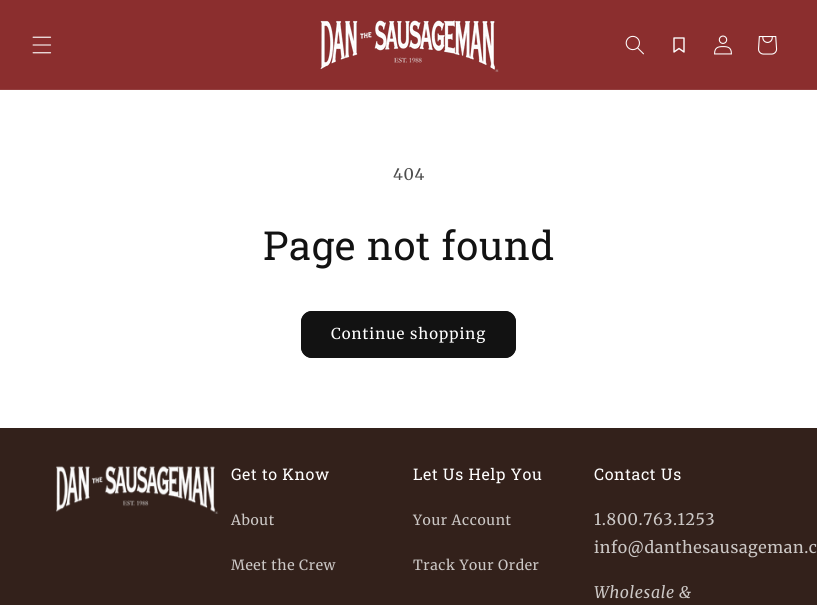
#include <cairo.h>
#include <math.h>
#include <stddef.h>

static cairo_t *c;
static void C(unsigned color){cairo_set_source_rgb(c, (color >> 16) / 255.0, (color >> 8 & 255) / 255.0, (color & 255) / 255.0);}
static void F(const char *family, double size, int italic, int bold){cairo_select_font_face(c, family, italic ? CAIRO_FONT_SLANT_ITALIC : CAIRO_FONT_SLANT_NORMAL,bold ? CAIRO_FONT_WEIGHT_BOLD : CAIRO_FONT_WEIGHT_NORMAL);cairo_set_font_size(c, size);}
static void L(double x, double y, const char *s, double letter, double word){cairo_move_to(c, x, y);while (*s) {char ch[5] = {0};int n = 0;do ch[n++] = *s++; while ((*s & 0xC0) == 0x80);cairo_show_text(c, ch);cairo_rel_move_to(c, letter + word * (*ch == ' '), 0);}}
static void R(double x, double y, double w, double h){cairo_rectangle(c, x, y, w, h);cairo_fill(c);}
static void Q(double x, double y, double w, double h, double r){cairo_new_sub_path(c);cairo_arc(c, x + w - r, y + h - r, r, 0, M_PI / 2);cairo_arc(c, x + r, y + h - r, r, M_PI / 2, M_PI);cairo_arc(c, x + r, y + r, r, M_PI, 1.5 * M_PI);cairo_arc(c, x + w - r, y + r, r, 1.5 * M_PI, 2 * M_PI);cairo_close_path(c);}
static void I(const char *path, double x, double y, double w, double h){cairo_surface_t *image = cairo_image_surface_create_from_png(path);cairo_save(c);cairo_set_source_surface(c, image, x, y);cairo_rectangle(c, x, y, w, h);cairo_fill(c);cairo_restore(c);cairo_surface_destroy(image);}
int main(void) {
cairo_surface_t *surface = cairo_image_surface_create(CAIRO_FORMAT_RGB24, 817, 605);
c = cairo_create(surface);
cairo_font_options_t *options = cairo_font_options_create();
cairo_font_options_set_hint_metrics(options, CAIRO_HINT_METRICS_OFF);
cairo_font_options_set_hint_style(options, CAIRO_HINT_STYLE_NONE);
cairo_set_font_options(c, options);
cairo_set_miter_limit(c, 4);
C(0xffffff);
cairo_paint(c);
C(0x8b2e2e);
R(0,0,817,89);
C(0x943f3f);
R(0,89,817,1);
I("1.png",32,36,20,18);
I("2.png",320,20,179,52);
I("3.png",625,35,19,20);
cairo_new_path(c);
cairo_move_to(c,674,38);
cairo_line_to(c,684,38);
cairo_line_to(c,684,52);
cairo_line_to(c,679,48.5);
cairo_line_to(c,674,52);
cairo_close_path(c);
C(0xffffff);
cairo_set_line_width(c,1.4);
cairo_set_line_cap(c,CAIRO_LINE_CAP_ROUND);
cairo_set_line_join(c,CAIRO_LINE_JOIN_ROUND);
cairo_stroke(c);
I("4.png",714,35,18,20);
I("5.png",758,36,20,19);
F("Merriweather",16,0,0);
C(0x4d4d4d);
L(393,180,"404",.6,0);
F("Roboto Slab",40,0,0);
C(0x121212);
L(263,260,"Page not found",.6,0);
Q(301,311,215,47,11);
cairo_fill(c);
Q(301.5,311.5,214,46,10.5);
cairo_set_line_width(c,1);
cairo_set_line_cap(c,CAIRO_LINE_CAP_BUTT);
cairo_set_line_join(c,CAIRO_LINE_JOIN_MITER);
cairo_stroke(c);
F("Merriweather",15,0,0);
C(0xffffff);
L(331,339,"Continue shopping",1,0);
C(0x33211b);
R(0,428,817,177);
I("6.png",56,466,163,48);
F("Roboto Slab",16,0,0);
C(0xffffff);
L(231,480,"Get to Know",.6,0);
F("Merriweather",14,0,0);
C(0xccc8c6);
L(231,525,"About",.6,0);
L(231,570,"Meet the Crew",.6,0);
F("Roboto Slab",16,0,0);
C(0xffffff);
L(413,480,"Let Us Help You",.6,0);
F("Merriweather",14,0,0);
C(0xccc8c6);
L(413,525,"Your Account",.6,0);
L(413,570,"Track Your Order",.6,0);
F("Roboto Slab",16,0,0);
C(0xffffff);
L(594,480,"Contact Us",.6,0);
F("Merriweather",16,0,0);
C(0xccc8c6);
L(594,525,"1.800.763.1253",.6,0);
L(594,553,"info@danthesausageman.c",.6,0);
F("Merriweather",16,1,0);
L(594,598,"Wholesale &",.6,0);
cairo_surface_write_to_png(surface, "o.png");
cairo_font_options_destroy(options);
cairo_destroy(c);
cairo_surface_destroy(surface);
return 0;
}
